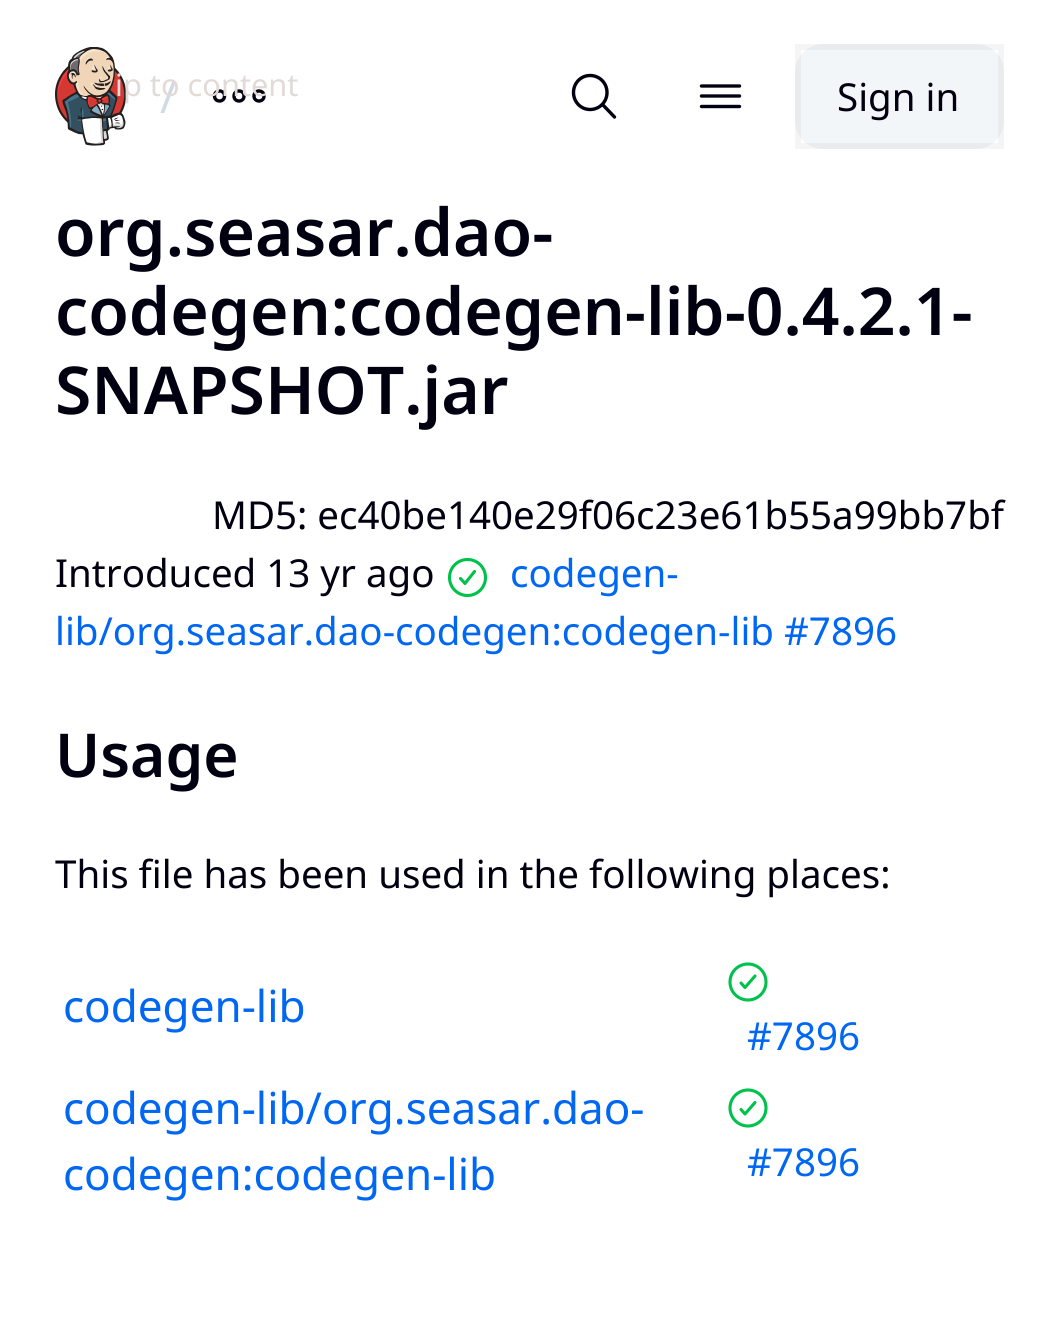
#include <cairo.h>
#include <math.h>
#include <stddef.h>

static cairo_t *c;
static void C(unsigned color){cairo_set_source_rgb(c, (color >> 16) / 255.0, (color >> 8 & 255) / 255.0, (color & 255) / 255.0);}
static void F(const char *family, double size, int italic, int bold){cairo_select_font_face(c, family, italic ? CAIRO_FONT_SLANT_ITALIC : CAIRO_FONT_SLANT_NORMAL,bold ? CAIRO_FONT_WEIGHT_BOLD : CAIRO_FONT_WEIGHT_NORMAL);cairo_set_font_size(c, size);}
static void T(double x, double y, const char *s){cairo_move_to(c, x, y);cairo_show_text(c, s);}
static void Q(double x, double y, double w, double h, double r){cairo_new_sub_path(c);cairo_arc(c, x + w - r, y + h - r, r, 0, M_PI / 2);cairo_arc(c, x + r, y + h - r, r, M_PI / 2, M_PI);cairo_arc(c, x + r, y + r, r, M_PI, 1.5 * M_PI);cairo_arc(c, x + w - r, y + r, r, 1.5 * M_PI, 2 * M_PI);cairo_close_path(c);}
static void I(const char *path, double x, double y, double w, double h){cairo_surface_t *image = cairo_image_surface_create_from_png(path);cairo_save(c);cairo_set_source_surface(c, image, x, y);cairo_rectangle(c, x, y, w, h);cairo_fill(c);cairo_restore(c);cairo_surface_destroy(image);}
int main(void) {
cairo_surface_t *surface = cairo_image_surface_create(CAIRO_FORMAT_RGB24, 1057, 1342);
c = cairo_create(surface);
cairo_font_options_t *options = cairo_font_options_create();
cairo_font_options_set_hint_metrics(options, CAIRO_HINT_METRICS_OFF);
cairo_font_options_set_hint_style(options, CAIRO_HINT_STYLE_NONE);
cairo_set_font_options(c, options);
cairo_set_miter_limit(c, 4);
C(0xffffff);
cairo_paint(c);
I("1.png",55,47,72,99);
F("Noto Sans",44,0,0);
C(0xd0dae6);
T(160,113,"/");
cairo_new_path(c);
cairo_arc(c,239,96,5,0,2 * M_PI);
C(0x010010);
cairo_set_line_width(c,3.4);
cairo_stroke(c);
cairo_arc(c,259,96,5,0,2 * M_PI);
cairo_stroke(c);
cairo_arc(c,219.5,96,5,0,2 * M_PI);
cairo_stroke(c);
F("Noto Sans",30.75,0,0);
C(0xe2dad6);
T(115,96,"ip to content");
cairo_new_path(c);
cairo_move_to(c,590,75.5);
cairo_curve_to(c,581,75.5,573.5,83,573.5,92.5);
cairo_curve_to(c,573.5,102,581,109.5,590,109.5);
cairo_curve_to(c,599.5,109.5,607,102,607,92.5);
cairo_curve_to(c,607,83,599.5,75.5,590,75.5);
cairo_close_path(c);
C(0x010010);
cairo_stroke(c);
cairo_new_path(c);
cairo_move_to(c,603,105);
cairo_line_to(c,614.5,117);
cairo_set_line_cap(c,CAIRO_LINE_CAP_ROUND);
cairo_stroke(c);
cairo_new_path(c);
cairo_move_to(c,701.5,86);
cairo_line_to(c,739.5,86);
cairo_move_to(c,701.5,96);
cairo_line_to(c,739.5,96);
cairo_move_to(c,701.5,106.5);
cairo_line_to(c,739.5,106.5);
cairo_stroke(c);
C(0xf3f6f9);
Q(795,44,209,105,28);
cairo_fill(c);
cairo_rectangle(c,798,47,203,99);
cairo_set_source_rgba(c,0.004,0,0.063,0.04);
cairo_set_line_width(c,6);
cairo_set_line_cap(c,CAIRO_LINE_CAP_BUTT);
cairo_stroke(c);
F("Noto Sans",38.5,0,0);
C(0x010010);
T(837,111,"Sign in");
F("Noto Sans SemiBold",66,0,0);
T(55,256,"org.seasar.dao-");
T(55,335,"codegen:codegen-lib-0.4.2.1-");
T(55,414,"SNAPSHOT.jar");
F("Noto Sans",38.5,0,0);
T(212,529,"MD5: ec40be140e29f06c23e61b55a99bb7bf");
T(55,587,"Introduced 13 yr ago");
C(0x0067f3);
T(510,587,"codegen-");
cairo_new_path(c);
cairo_arc(c,467.5,577.5,18,0,2 * M_PI);
C(0x00c14c);
cairo_set_line_width(c,3.1);
cairo_stroke(c);
cairo_new_path(c);
cairo_move_to(c,474.5,571.5);
cairo_line_to(c,465,583.5);
cairo_line_to(c,460.5,578.5);
cairo_set_line_cap(c,CAIRO_LINE_CAP_ROUND);
cairo_set_line_join(c,CAIRO_LINE_JOIN_ROUND);
cairo_stroke(c);
C(0x0067f3);
T(55,645,"lib/org.seasar.dao-codegen:codegen-lib #7896");
F("Noto Sans SemiBold",60.5,0,0);
C(0x010010);
T(55,777,"Usage");
F("Noto Sans",38.5,0,0);
T(55,888,"This file has been used in the following places:");
F("Noto Sans",44,0,0);
C(0x0067f3);
T(63,1022,"codegen-lib");
F("Noto Sans",38.5,0,0);
T(747,1050,"#7896");
cairo_new_path(c);
cairo_arc(c,748,982,18,0,2 * M_PI);
C(0x00c14c);
cairo_set_line_cap(c,CAIRO_LINE_CAP_BUTT);
cairo_set_line_join(c,CAIRO_LINE_JOIN_MITER);
cairo_stroke(c);
cairo_new_path(c);
cairo_move_to(c,755,976);
cairo_line_to(c,745,987.5);
cairo_line_to(c,741,983);
cairo_set_line_cap(c,CAIRO_LINE_CAP_ROUND);
cairo_set_line_join(c,CAIRO_LINE_JOIN_ROUND);
cairo_stroke(c);
F("Noto Sans",44,0,0);
C(0x0067f3);
T(63,1124,"codegen-lib/org.seasar.dao-");
T(63,1190,"codegen:codegen-lib");
F("Noto Sans",38.5,0,0);
T(747,1176,"#7896");
cairo_new_path(c);
cairo_arc(c,748,1108,18,0,2 * M_PI);
C(0x00c14c);
cairo_set_line_cap(c,CAIRO_LINE_CAP_BUTT);
cairo_set_line_join(c,CAIRO_LINE_JOIN_MITER);
cairo_stroke(c);
cairo_new_path(c);
cairo_move_to(c,755,1102.5);
cairo_line_to(c,745,1114);
cairo_line_to(c,741,1109.5);
cairo_set_line_cap(c,CAIRO_LINE_CAP_ROUND);
cairo_set_line_join(c,CAIRO_LINE_JOIN_ROUND);
cairo_stroke(c);
cairo_surface_write_to_png(surface, "o.png");
cairo_font_options_destroy(options);
cairo_destroy(c);
cairo_surface_destroy(surface);
return 0;
}
